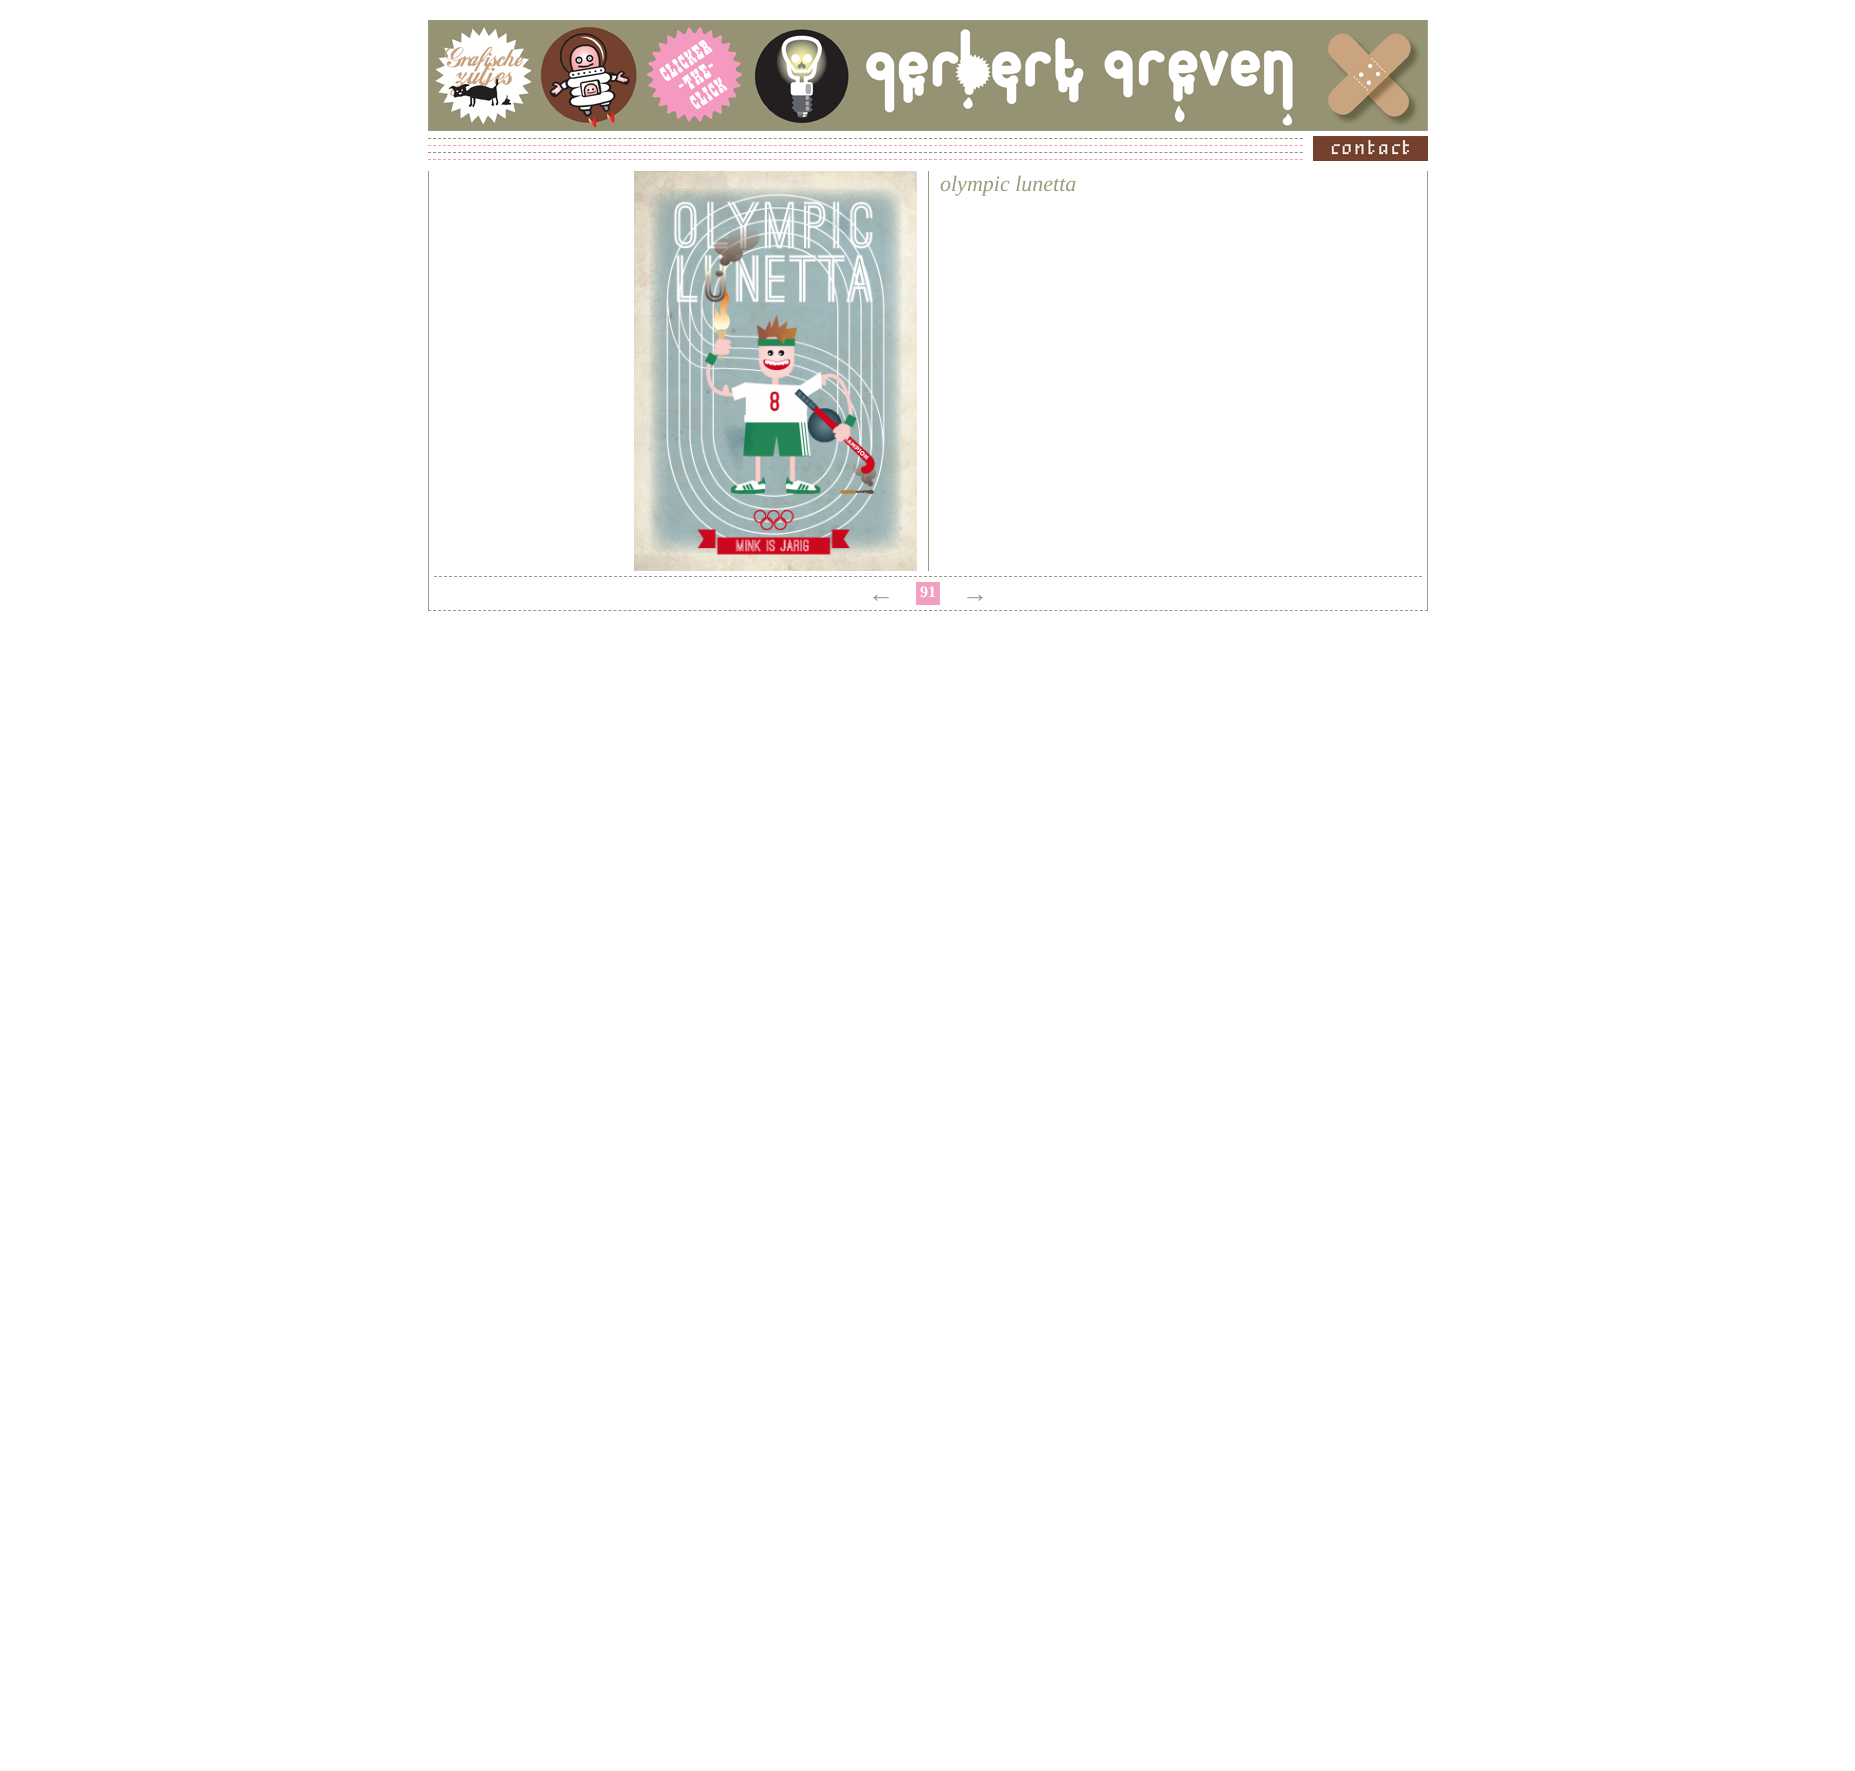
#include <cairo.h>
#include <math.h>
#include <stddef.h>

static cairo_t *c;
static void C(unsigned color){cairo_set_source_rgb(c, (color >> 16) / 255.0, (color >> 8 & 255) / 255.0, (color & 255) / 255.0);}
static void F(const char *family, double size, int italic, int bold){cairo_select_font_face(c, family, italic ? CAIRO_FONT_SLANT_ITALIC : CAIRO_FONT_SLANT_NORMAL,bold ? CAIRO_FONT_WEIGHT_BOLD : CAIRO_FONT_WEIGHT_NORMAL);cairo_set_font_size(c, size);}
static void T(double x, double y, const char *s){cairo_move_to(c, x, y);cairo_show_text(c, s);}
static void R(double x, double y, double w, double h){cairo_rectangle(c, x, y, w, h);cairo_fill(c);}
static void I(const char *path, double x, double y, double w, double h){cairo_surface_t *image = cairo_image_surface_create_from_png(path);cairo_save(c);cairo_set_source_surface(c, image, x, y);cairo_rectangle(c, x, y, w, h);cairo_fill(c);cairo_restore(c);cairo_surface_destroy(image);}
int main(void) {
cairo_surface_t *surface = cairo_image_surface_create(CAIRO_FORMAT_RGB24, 1855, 1771);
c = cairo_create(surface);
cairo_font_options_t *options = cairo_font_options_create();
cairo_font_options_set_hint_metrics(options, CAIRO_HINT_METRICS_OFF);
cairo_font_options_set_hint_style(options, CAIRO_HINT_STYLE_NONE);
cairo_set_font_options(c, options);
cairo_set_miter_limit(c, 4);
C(0xffffff);
cairo_paint(c);
I("1.png",428,20,1000,111);
cairo_new_path(c);
cairo_move_to(c,428,138.5);
cairo_line_to(c,1303,138.5);
C(0x969375);
cairo_set_line_width(c,1);
cairo_set_dash(c,(double[]){3,2.01},2,0);
cairo_stroke(c);
cairo_new_path(c);
cairo_move_to(c,428,145.5);
cairo_line_to(c,1303,145.5);
C(0xf49ac1);
cairo_stroke(c);
cairo_new_path(c);
cairo_move_to(c,428,152.5);
cairo_line_to(c,1303,152.5);
C(0x969375);
cairo_stroke(c);
cairo_new_path(c);
cairo_move_to(c,428,159.5);
cairo_line_to(c,1303,159.5);
C(0xf49ac1);
cairo_stroke(c);
I("2.png",1313,136,115,25);
C(0x9d9a7f);
R(1427,171,1,440);
cairo_new_path(c);
cairo_move_to(c,428,610.5);
cairo_line_to(c,1428,610.5);
cairo_stroke(c);
R(428,171,1,440);
cairo_new_path(c);
cairo_move_to(c,434,576.5);
cairo_line_to(c,1422,576.5);
cairo_set_dash(c,(double[]){3,2},2,0);
cairo_stroke(c);
R(928,171,1,400);
I("3.png",634,171,283,400);
F("Liberation Serif",22,1,0);
T(940,191,"olympic lunetta");
F("Liberation Serif",26,0,1);
T(868,602,"←");
C(0xf19fc1);
R(916,582,24,23);
F("Liberation Serif",16,0,1);
C(0xffffff);
T(920,597,"91");
F("Liberation Serif",26,0,1);
C(0x9d9a7f);
T(962,602,"→");
cairo_surface_write_to_png(surface, "o.png");
cairo_font_options_destroy(options);
cairo_destroy(c);
cairo_surface_destroy(surface);
return 0;
}
